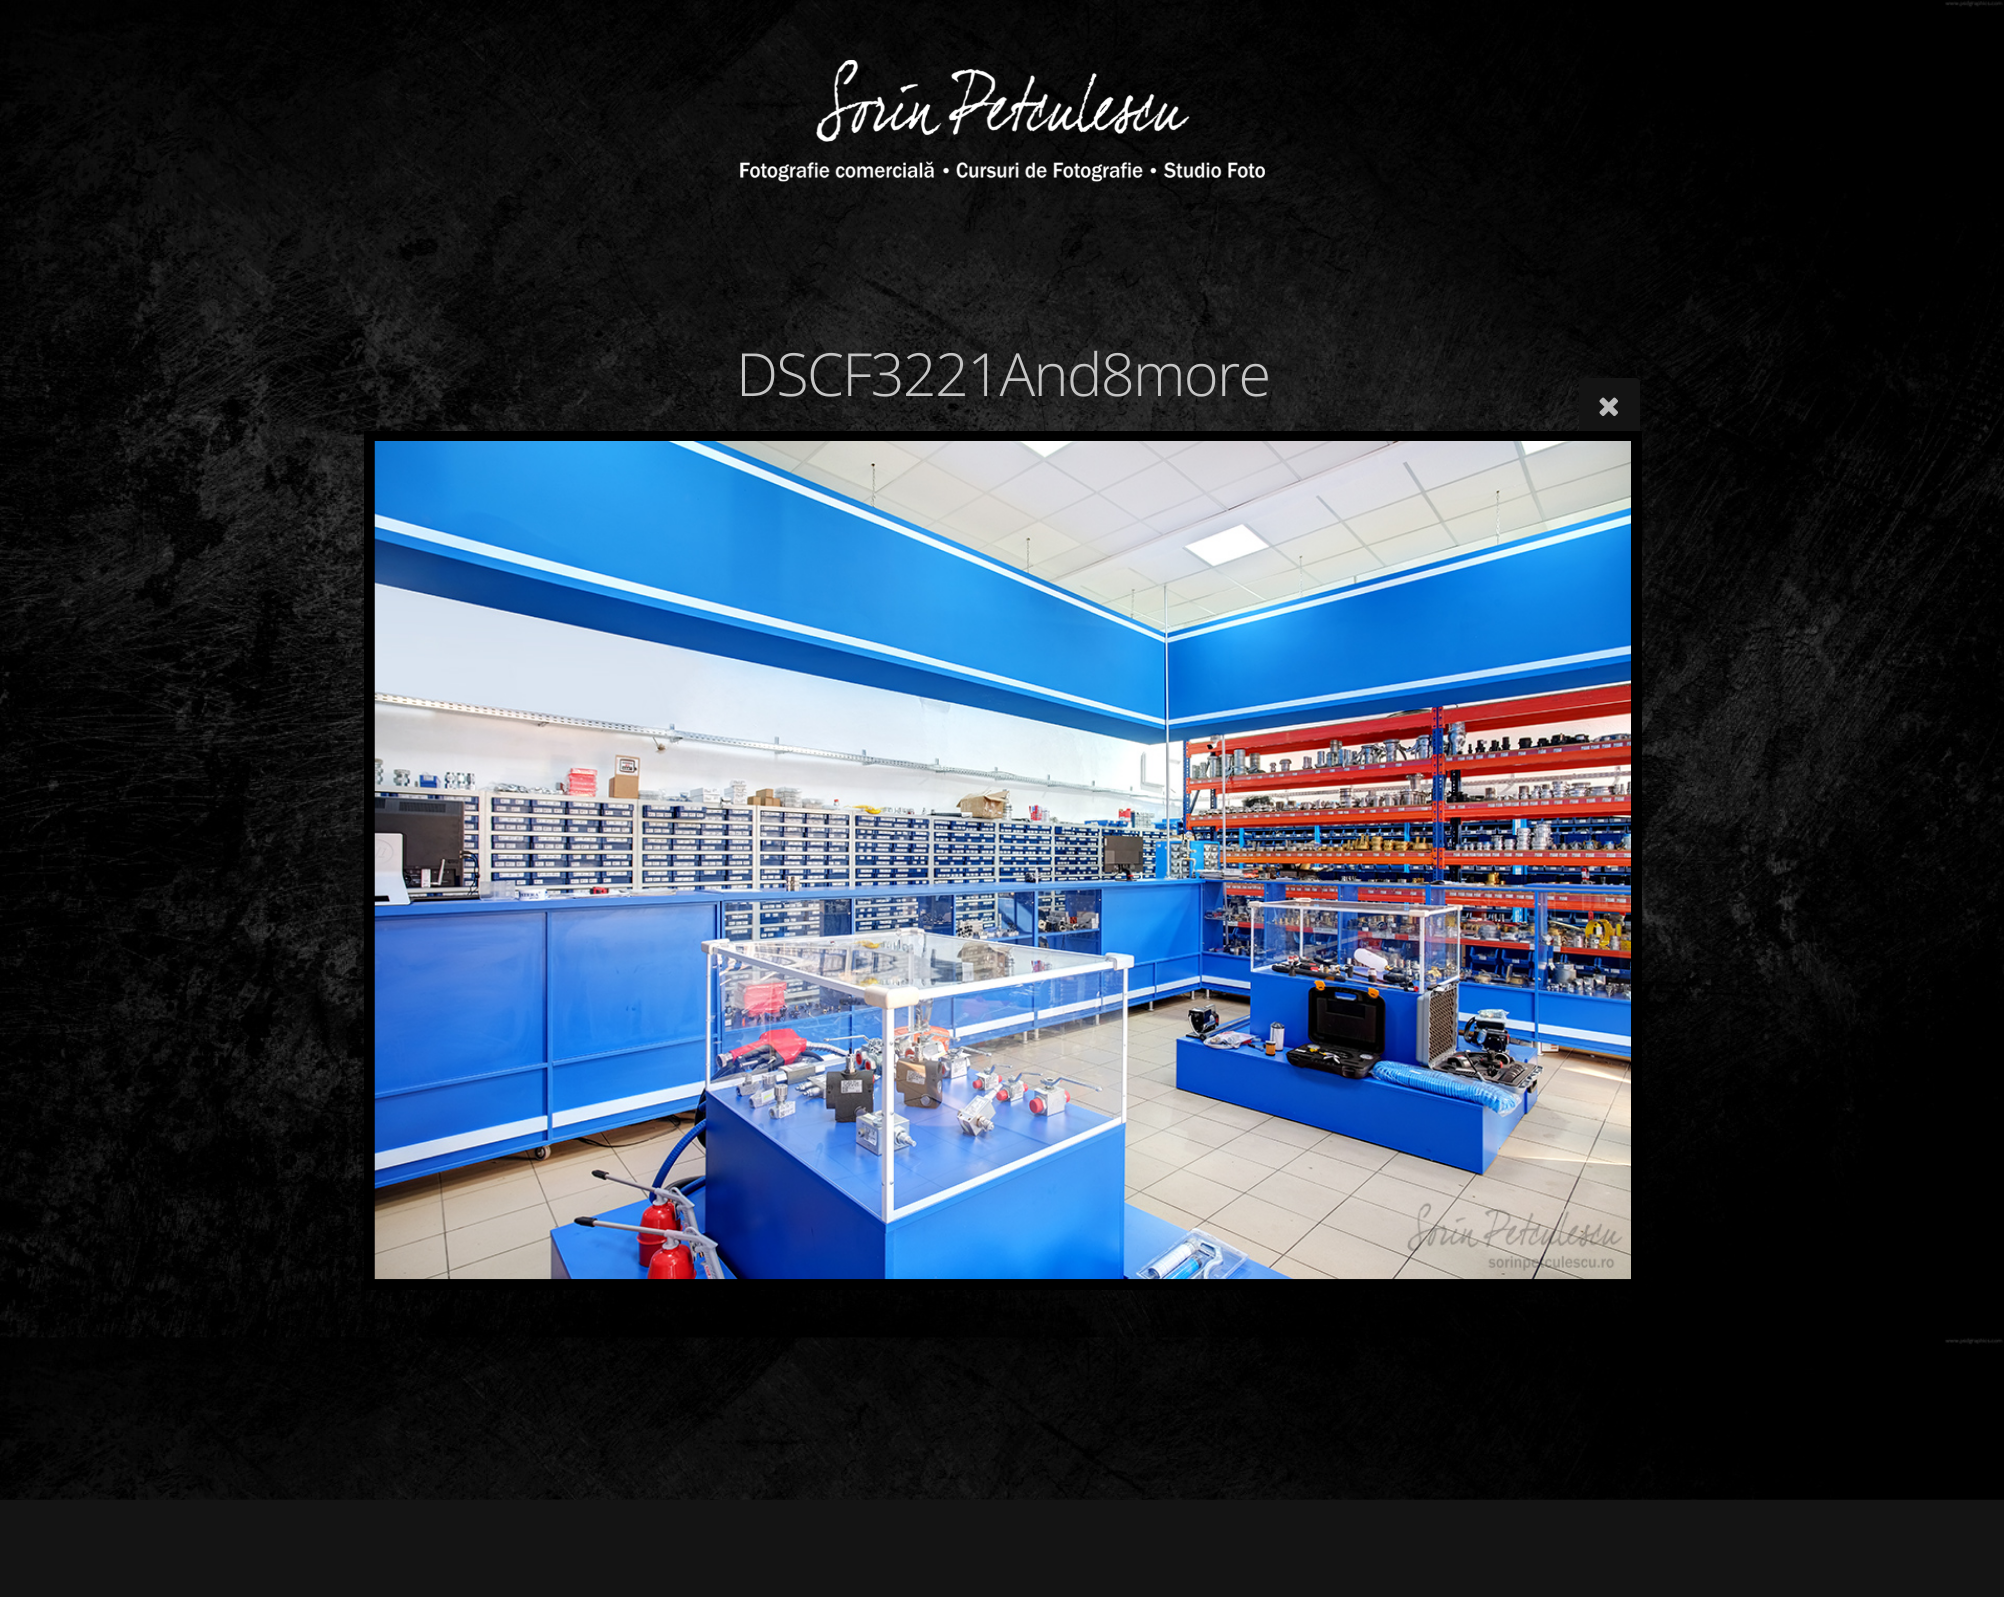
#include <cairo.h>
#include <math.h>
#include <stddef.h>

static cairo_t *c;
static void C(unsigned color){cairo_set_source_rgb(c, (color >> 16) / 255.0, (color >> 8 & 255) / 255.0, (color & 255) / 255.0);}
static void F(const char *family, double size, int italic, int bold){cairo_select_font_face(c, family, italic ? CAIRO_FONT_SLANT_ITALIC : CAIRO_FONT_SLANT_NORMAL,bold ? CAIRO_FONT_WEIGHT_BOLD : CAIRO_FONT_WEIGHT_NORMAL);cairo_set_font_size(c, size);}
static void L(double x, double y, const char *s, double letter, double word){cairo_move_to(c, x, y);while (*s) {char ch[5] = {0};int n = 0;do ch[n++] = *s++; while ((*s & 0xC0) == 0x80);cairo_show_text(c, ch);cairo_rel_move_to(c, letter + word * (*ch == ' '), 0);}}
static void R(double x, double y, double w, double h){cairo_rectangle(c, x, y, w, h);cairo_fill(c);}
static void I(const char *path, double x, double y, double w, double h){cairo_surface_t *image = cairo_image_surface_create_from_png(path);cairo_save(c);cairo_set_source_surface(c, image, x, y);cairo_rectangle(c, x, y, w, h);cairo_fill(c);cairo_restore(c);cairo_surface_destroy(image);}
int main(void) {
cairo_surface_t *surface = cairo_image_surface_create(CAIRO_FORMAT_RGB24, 2004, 1597);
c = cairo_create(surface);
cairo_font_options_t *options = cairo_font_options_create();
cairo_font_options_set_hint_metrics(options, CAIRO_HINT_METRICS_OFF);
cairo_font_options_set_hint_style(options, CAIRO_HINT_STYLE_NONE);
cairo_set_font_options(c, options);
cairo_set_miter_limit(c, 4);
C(0x141414);
cairo_paint(c);
I("1.png",0,0,2004,1500);
I("2.png",740,60,525,122);
F("Open Sans Light",59.5,0,0);
C(0xc5c5c5);
L(736,396,"DSCF3221And8more",-1.7,0);
C(0x141414);
cairo_new_path(c);
cairo_move_to(c,1584,378);
cairo_line_to(c,1635,378);
cairo_curve_to(c,1638,378,1640,380,1640,383);
cairo_line_to(c,1640,431);
cairo_line_to(c,1579,431);
cairo_line_to(c,1579,383);
cairo_curve_to(c,1579,380,1581,378,1584,378);
cairo_close_path(c);
cairo_fill(c);
I("3.png",1599,397,19,20);
C(0x000000);
R(364,431,1278,859);
I("4.png",374,441,1257,839);
cairo_surface_write_to_png(surface, "o.png");
cairo_font_options_destroy(options);
cairo_destroy(c);
cairo_surface_destroy(surface);
return 0;
}
